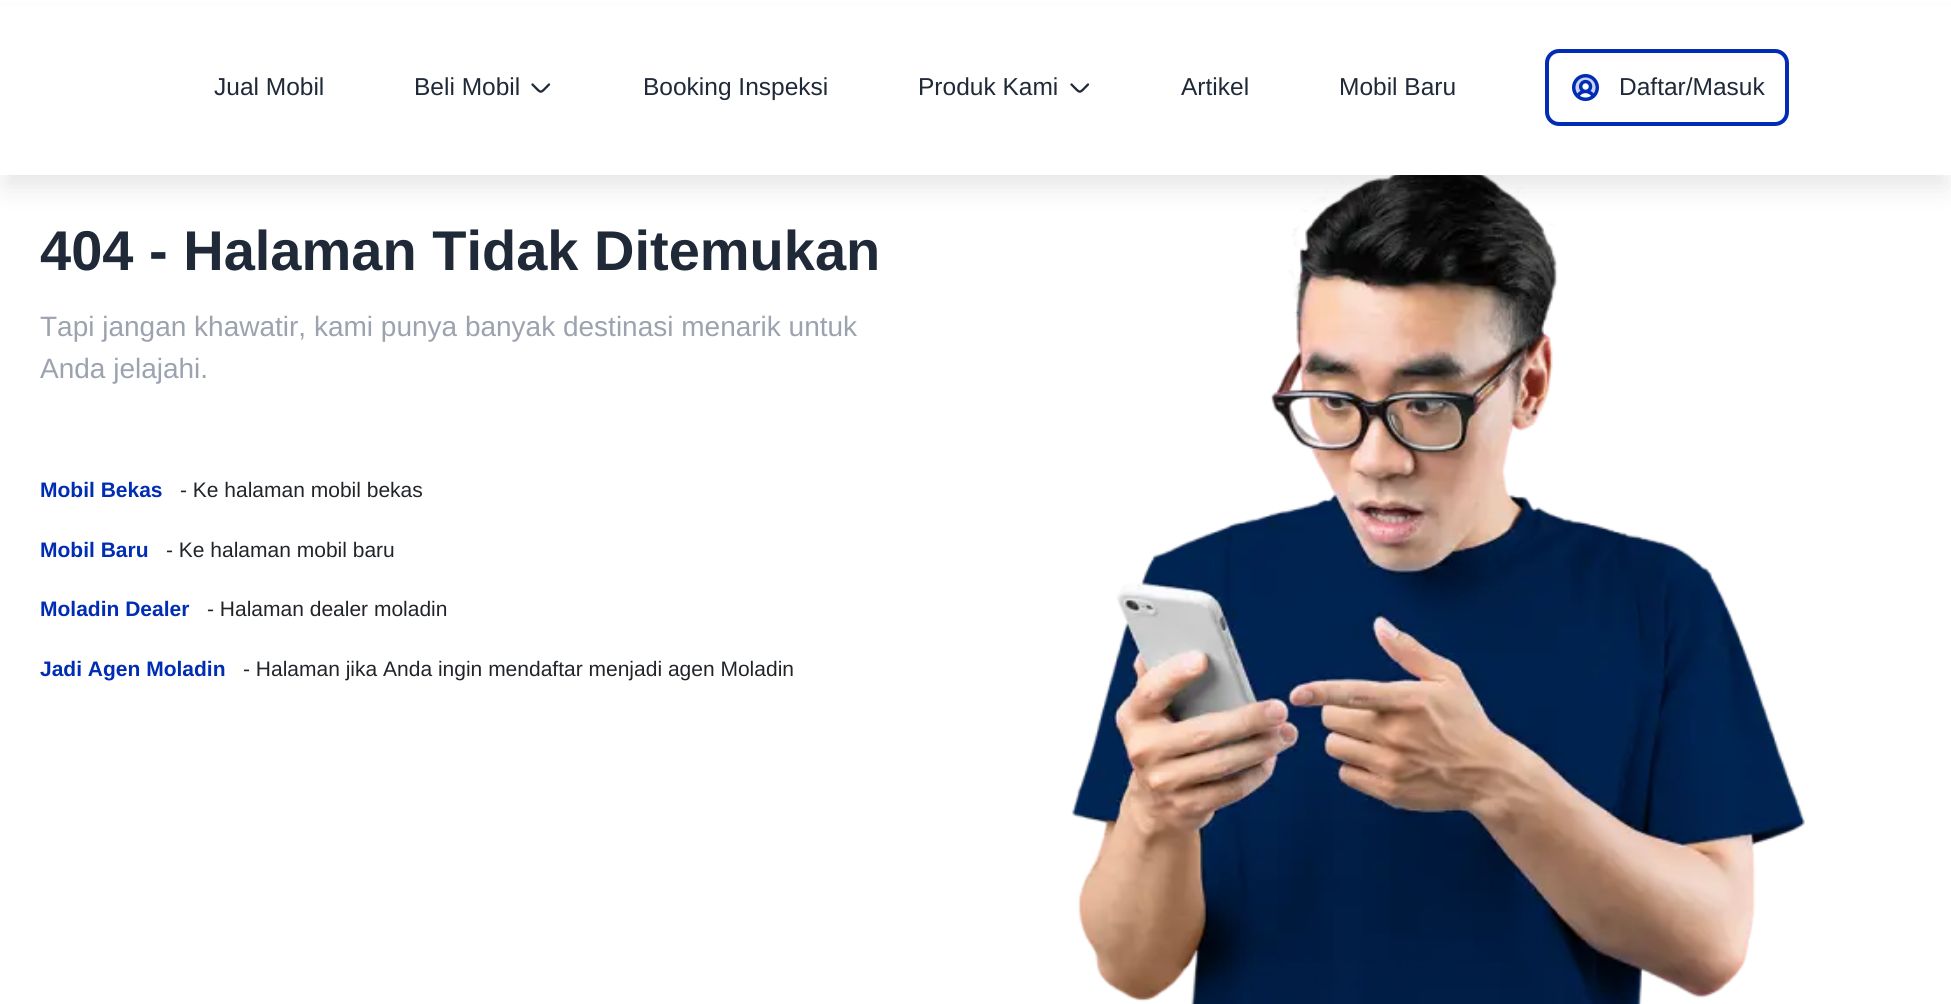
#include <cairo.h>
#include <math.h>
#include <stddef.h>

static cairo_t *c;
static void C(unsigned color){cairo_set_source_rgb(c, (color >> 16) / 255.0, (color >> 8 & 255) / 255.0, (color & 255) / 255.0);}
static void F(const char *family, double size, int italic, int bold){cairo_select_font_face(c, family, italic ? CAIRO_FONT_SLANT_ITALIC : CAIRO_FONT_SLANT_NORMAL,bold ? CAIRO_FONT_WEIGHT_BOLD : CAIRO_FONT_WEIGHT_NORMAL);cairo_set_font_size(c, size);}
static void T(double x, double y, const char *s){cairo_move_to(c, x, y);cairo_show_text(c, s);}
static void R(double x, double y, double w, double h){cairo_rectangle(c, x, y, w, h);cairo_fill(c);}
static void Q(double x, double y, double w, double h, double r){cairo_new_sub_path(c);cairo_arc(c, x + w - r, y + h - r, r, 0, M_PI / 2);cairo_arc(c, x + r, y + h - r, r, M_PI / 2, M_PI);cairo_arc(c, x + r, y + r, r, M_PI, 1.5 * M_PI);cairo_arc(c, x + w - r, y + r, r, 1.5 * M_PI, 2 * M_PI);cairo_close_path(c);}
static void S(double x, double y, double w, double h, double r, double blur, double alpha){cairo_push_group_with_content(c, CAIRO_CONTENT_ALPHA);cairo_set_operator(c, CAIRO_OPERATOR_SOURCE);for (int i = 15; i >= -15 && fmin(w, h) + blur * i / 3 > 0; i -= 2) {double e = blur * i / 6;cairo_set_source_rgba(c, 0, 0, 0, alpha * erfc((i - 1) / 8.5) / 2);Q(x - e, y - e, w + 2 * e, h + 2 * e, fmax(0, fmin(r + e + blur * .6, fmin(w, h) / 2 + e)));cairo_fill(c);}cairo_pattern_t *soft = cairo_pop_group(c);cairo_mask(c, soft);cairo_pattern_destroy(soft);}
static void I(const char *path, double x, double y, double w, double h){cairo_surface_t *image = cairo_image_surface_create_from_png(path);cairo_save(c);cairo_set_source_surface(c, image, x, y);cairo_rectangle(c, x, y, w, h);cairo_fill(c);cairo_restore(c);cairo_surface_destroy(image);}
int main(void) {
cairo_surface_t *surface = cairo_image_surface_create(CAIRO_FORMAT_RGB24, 1951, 1004);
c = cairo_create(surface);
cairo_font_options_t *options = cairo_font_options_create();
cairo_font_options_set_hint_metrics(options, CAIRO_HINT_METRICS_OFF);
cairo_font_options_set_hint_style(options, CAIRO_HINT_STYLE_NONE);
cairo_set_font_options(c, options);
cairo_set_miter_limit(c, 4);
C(0xffffff);
cairo_paint(c);
I("2.png",1071,175,734,829);
C(0x000000);
S(5,23,1941,164,0,13,.1);
C(0xffffff);
R(0,6,1951,169);
F("Liberation Sans",24.5,0,0);
C(0x1f2937);
T(214,95,"Jual Mobil");
T(414,95,"Beli Mobil");
cairo_new_path(c);
cairo_move_to(c,549,84.5);
cairo_curve_to(c,539.5,94,542,94,532.5,84.5);
cairo_set_line_width(c,2.3);
cairo_set_line_cap(c,CAIRO_LINE_CAP_ROUND);
cairo_set_line_join(c,CAIRO_LINE_JOIN_ROUND);
cairo_stroke(c);
T(643,95,"Booking Inspeksi");
T(918,95,"Produk Kami");
cairo_new_path(c);
cairo_move_to(c,1088,84.5);
cairo_curve_to(c,1078.5,94,1081,94,1071.5,84.5);
cairo_stroke(c);
T(1181,95,"Artikel");
T(1339,95,"Mobil Baru");
Q(1547,51,240,73,12);
C(0x002db4);
cairo_set_line_width(c,4);
cairo_set_line_cap(c,CAIRO_LINE_CAP_BUTT);
cairo_set_line_join(c,CAIRO_LINE_JOIN_MITER);
cairo_stroke(c);
I("1.png",1571,73,29,29);
C(0x1f2937);
T(1619,95,"Daftar/Masuk");
F("Liberation Sans",56,0,1);
T(40,270,"404 - Halaman Tidak Ditemukan");
F("Liberation Sans",28,0,0);
C(0x9ca3af);
T(40,336,"Tapi jangan khawatir, kami punya banyak destinasi menarik untuk");
T(40,378,"Anda jelajahi.");
F("Liberation Sans",21,0,1);
C(0x002db4);
T(40,497,"Mobil Bekas");
F("Liberation Sans",21,0,0);
C(0x212529);
T(180,497,"- Ke halaman mobil bekas");
F("Liberation Sans",21,0,1);
C(0x002db4);
T(40,557,"Mobil Baru");
F("Liberation Sans",21,0,0);
C(0x212529);
T(166,557,"- Ke halaman mobil baru");
F("Liberation Sans",21,0,1);
C(0x002db4);
T(40,616,"Moladin Dealer");
F("Liberation Sans",21,0,0);
C(0x212529);
T(207,616,"- Halaman dealer moladin");
F("Liberation Sans",21,0,1);
C(0x002db4);
T(40,676,"Jadi Agen Moladin");
F("Liberation Sans",21,0,0);
C(0x212529);
T(243,676,"- Halaman jika Anda ingin mendaftar menjadi agen Moladin");
cairo_surface_write_to_png(surface, "o.png");
cairo_font_options_destroy(options);
cairo_destroy(c);
cairo_surface_destroy(surface);
return 0;
}
